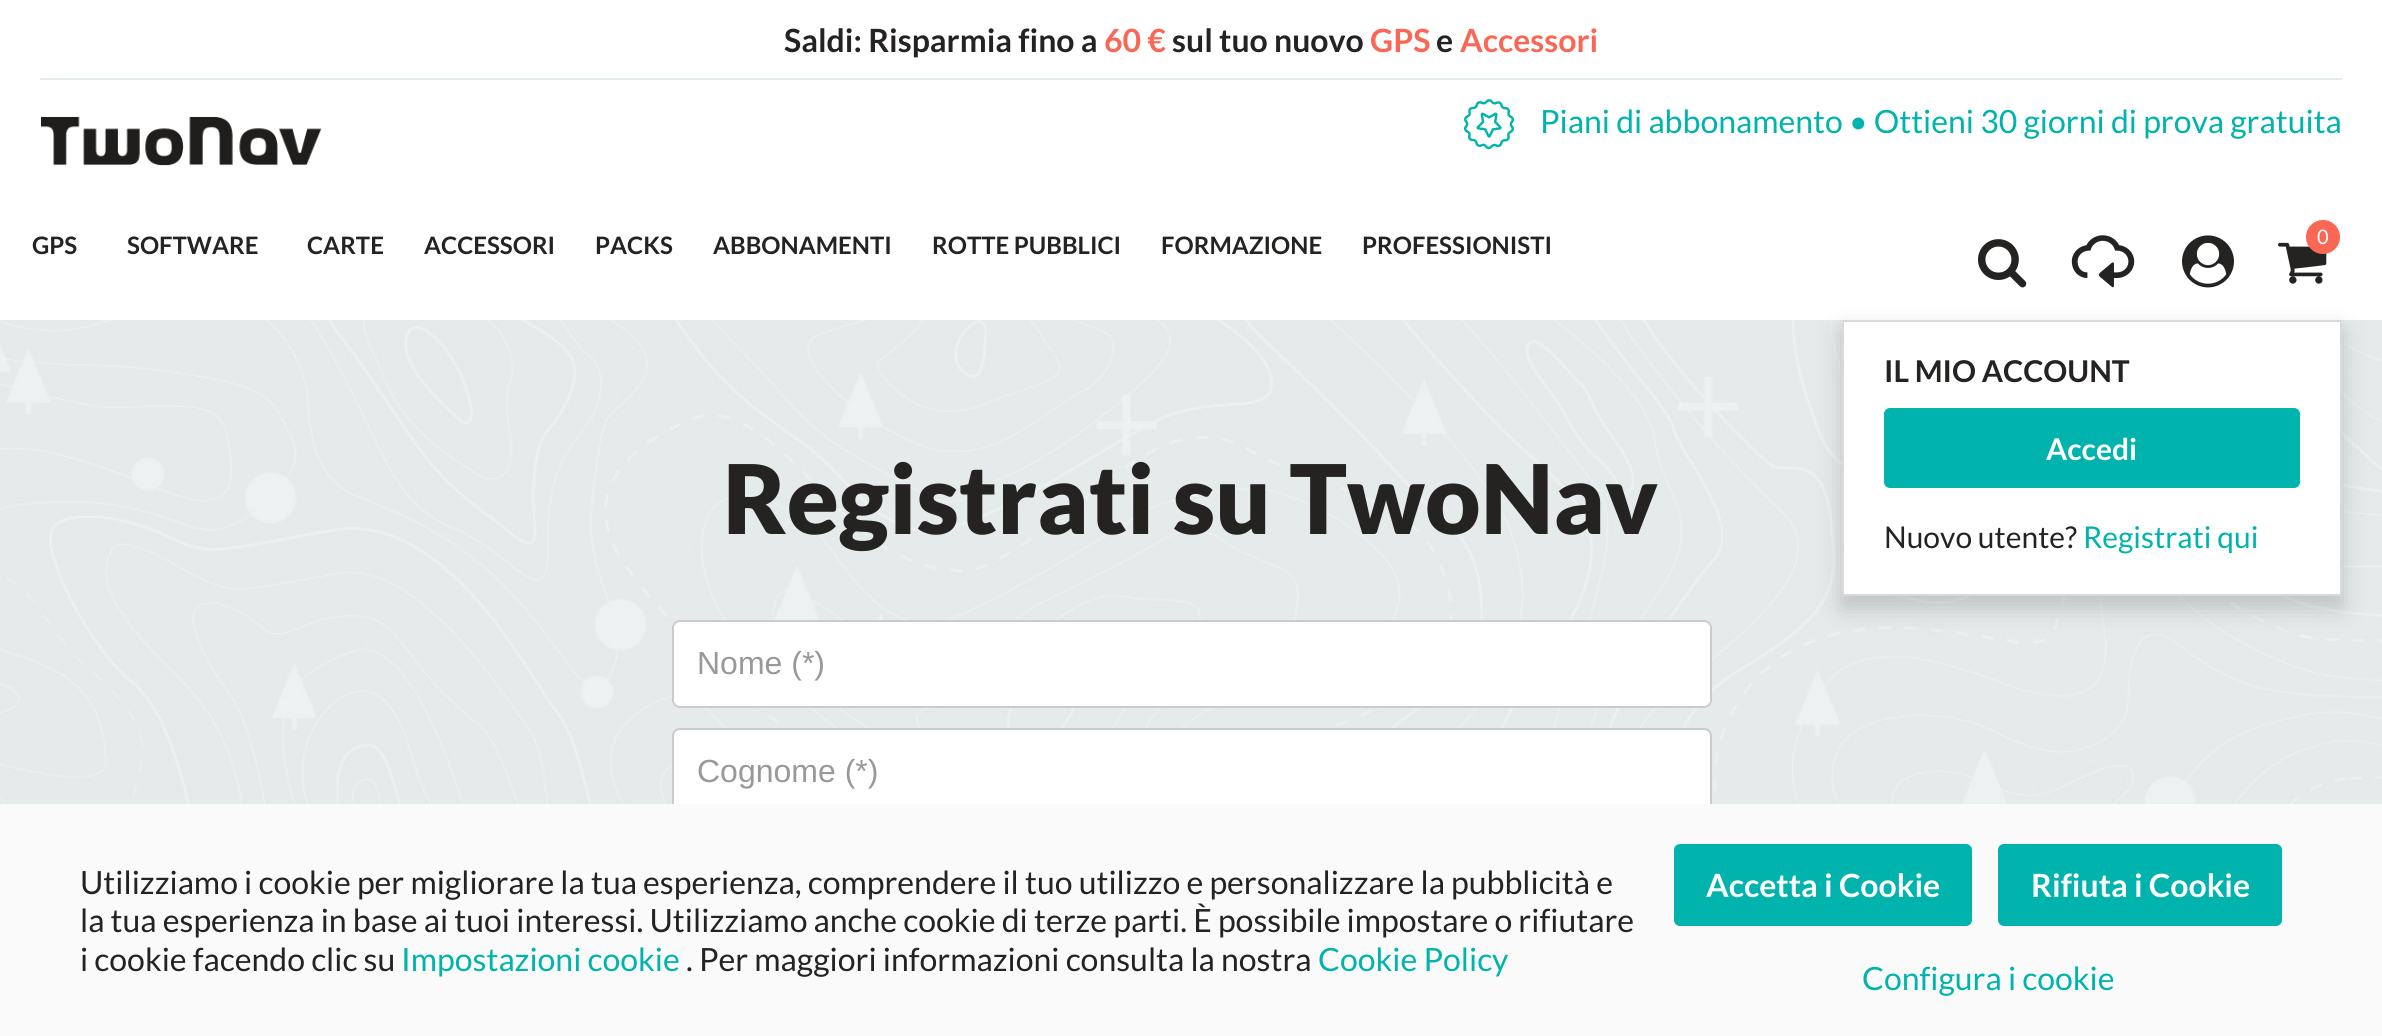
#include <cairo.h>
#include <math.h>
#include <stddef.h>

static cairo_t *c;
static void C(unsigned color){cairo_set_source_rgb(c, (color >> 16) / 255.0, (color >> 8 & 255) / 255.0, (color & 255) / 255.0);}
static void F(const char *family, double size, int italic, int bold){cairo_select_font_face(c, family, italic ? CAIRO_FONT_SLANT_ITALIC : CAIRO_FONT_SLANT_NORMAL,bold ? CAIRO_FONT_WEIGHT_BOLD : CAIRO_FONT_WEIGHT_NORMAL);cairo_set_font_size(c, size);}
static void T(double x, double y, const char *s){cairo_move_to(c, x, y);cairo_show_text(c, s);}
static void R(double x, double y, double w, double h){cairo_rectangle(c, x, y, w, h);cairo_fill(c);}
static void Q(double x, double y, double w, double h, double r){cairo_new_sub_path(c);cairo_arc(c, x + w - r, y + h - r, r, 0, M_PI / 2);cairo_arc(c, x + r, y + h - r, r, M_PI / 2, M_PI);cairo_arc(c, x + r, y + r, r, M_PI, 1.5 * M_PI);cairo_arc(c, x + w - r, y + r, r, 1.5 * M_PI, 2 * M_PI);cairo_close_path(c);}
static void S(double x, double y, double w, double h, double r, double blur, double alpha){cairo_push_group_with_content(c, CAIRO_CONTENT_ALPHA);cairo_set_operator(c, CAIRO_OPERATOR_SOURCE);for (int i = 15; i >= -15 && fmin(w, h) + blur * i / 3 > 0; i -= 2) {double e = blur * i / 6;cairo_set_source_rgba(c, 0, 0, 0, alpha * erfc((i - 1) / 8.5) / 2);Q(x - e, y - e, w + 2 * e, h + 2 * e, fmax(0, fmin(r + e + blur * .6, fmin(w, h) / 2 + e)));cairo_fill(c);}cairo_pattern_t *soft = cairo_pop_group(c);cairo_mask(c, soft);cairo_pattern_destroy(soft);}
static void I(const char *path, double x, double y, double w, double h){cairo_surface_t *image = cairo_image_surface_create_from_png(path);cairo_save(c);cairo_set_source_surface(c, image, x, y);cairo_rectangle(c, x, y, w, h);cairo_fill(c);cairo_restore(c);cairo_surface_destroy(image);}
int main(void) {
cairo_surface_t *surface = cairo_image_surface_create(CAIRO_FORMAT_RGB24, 2382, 1036);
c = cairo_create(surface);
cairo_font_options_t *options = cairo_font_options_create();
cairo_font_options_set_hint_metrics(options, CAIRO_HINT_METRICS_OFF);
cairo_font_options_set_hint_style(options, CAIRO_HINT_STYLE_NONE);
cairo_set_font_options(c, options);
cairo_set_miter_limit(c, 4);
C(0xffffff);
cairo_paint(c);
C(0xe4ebeb);
R(40,78,2302,2);
F("Lato",32,0,1);
C(0x242322);
T(784,52,"Saldi: Risparmia fino a");
C(0xfa6855);
T(1104,52,"60 €");
C(0x242322);
T(1172,52,"sul tuo nuovo");
C(0xfa6855);
T(1370,52,"GPS");
C(0x242322);
T(1436,52,"e");
C(0xfa6855);
T(1460,52,"Accessori");
I("1.png",41,117,281,49);
I("2.png",1464,99,50,51);
F("Lato",32,0,0);
C(0x00b3ad);
T(1540,133,"Piani di abbonamento • Ottieni 30 giorni di prova gratuita");
F("Lato",24,0,1);
C(0x242322);
T(32,254,"GPS");
T(127,254,"SOFTWARE");
T(307,254,"CARTE");
T(424,254,"ACCESSORI");
T(595,254,"PACKS");
T(713,254,"ABBONAMENTI");
T(932,254,"ROTTE PUBBLICI");
T(1161,254,"FORMAZIONE");
T(1362,254,"PROFESSIONISTI");
I("3.png",1978,239,49,49);
I("4.png",2071,235,64,53);
I("5.png",2182,235,52,53);
I("6.png",2278,242,49,42);
C(0xfa6855);
cairo_arc(c,2323,237,17,0,2 * M_PI);
cairo_fill(c);
F("Lato",20,0,0);
C(0xffffff);
T(2317,244,"0");
I("7.png",0,320,2382,484);
C(0x000000);
S(1842,332,500,276,0,12,.18);
C(0xffffff);
cairo_rectangle(c,1843,321,498,274);
cairo_fill_preserve(c);
C(0xd9d9d9);
cairo_stroke(c);
F("Lato",30,0,1);
C(0x242322);
T(1884,382,"IL MIO ACCOUNT");
C(0x00b3ad);
Q(1885,409,414,78,5);
cairo_fill_preserve(c);
cairo_stroke(c);
C(0xffffff);
T(2046,460,"Accedi");
F("Lato",30,0,0);
C(0x242322);
T(1884,548,"Nuovo utente?");
C(0x00b3ad);
T(2083,548,"Registrati qui");
F("Lato Black",96,0,0);
C(0x242322);
T(723,534,"Registrati su TwoNav");
C(0xffffff);
Q(673,621,1038,86,7);
cairo_fill_preserve(c);
C(0xcccccc);
cairo_stroke(c);
F("Liberation Sans",32,0,0);
C(0x999999);
T(697,674,"Nome (*)");
C(0xffffff);
Q(673,729,1038,86,7);
cairo_fill_preserve(c);
C(0xcccccc);
cairo_stroke(c);
C(0x999999);
T(697,782,"Cognome (*)");
C(0xfafafa);
R(0,804,2382,232);
F("Lato",32,0,0);
C(0x242322);
T(80,894,"Utilizziamo i cookie per migliorare la tua esperienza, comprendere il tuo utilizzo e personalizzare la pubblicità e");
T(80,932,"la tua esperienza in base ai tuoi interessi. Utilizziamo anche cookie di terze parti. È possibile impostare o rifiutare");
T(80,971,"i cookie facendo clic su");
C(0x00b3ad);
T(401,971,"Impostazioni cookie");
C(0x242322);
T(686,971,". Per maggiori informazioni consulta la nostra");
C(0x00b3ad);
T(1318,971,"Cookie Policy");
Q(1675,845,296,80,5);
cairo_fill_preserve(c);
cairo_stroke(c);
F("Lato",32,0,1);
C(0xffffff);
T(1706,897,"Accetta i Cookie");
C(0x00b3ad);
Q(1999,845,282,80,5);
cairo_fill_preserve(c);
cairo_stroke(c);
C(0xffffff);
T(2031,897,"Rifiuta i Cookie");
F("Lato",32,0,0);
C(0x00b3ad);
T(1862,990,"Configura i cookie");
cairo_surface_write_to_png(surface, "o.png");
cairo_font_options_destroy(options);
cairo_destroy(c);
cairo_surface_destroy(surface);
return 0;
}
